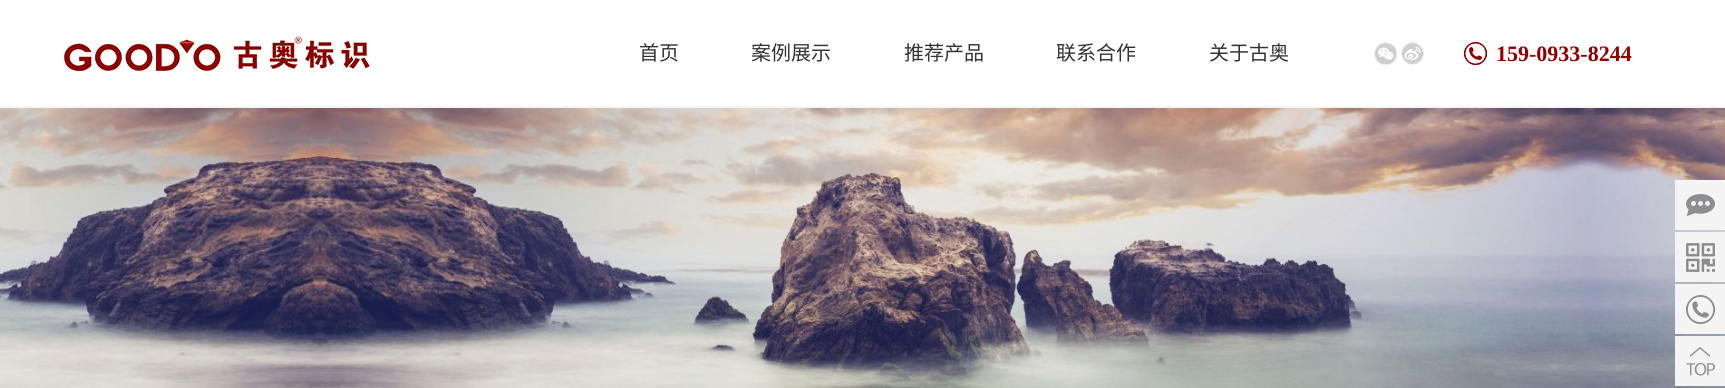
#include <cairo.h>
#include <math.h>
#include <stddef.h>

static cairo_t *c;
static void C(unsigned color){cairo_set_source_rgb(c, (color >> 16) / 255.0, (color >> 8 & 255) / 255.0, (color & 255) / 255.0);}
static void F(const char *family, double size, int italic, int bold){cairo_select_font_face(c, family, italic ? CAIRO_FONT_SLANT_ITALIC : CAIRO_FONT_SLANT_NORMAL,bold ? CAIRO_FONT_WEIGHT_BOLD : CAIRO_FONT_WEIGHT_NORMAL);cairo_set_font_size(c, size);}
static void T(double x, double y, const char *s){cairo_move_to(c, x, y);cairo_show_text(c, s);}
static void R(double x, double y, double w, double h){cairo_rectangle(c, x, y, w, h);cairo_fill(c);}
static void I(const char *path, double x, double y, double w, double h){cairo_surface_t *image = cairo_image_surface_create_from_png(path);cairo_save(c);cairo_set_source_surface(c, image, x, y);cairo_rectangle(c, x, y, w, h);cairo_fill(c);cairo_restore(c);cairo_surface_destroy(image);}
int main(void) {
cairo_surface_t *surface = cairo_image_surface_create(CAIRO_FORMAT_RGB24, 1725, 388);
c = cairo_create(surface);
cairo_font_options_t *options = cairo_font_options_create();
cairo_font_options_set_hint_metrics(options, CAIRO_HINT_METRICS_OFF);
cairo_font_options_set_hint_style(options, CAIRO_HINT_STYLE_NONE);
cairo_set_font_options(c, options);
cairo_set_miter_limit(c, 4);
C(0xffffff);
cairo_paint(c);
C(0xf5f5f5);
R(0,106,1725,2);
I("1.png",64,36,306,35);
F("Noto Sans CJK SC",20,0,0);
C(0x333333);
T(639,60,"首页");
T(751,60,"案例展示");
T(904,60,"推荐产品");
T(1056,60,"联系合作");
T(1209,60,"关于古奥");
I("2.png",1374,42,23,23);
I("3.png",1401,42,23,23);
I("4.png",1464,42,23,23);
F("Liberation Serif",22,0,1);
C(0x910000);
T(1496,61,"159-0933-8244");
I("5.png",0,108,1725,280);
C(0xf4f4f4);
R(1675,180,50,50);
I("6.png",1686,194,29,22);
R(1675,232,50,50);
I("7.png",1686,243,29,29);
R(1675,284,50,50);
I("8.png",1686,295,29,29);
R(1675,336,50,50);
I("9.png",1686,347,29,29);
cairo_surface_write_to_png(surface, "o.png");
cairo_font_options_destroy(options);
cairo_destroy(c);
cairo_surface_destroy(surface);
return 0;
}
